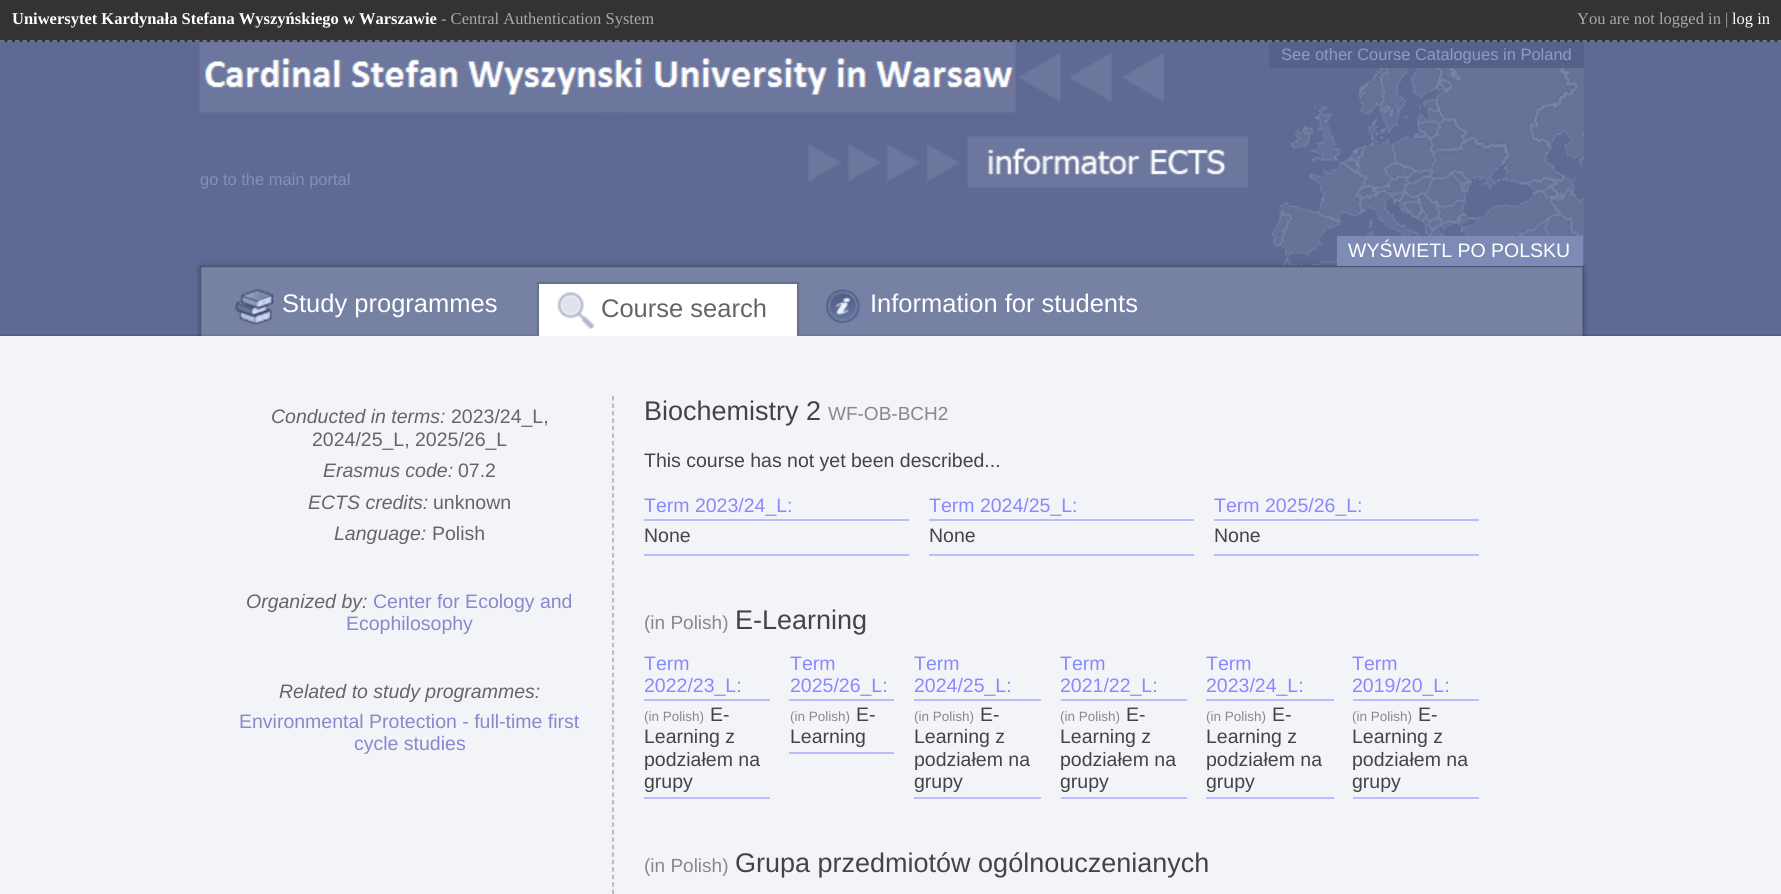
#include <cairo.h>
#include <math.h>
#include <stddef.h>

static cairo_t *c;
static void C(unsigned color){cairo_set_source_rgb(c, (color >> 16) / 255.0, (color >> 8 & 255) / 255.0, (color & 255) / 255.0);}
static void F(const char *family, double size, int italic, int bold){cairo_select_font_face(c, family, italic ? CAIRO_FONT_SLANT_ITALIC : CAIRO_FONT_SLANT_NORMAL,bold ? CAIRO_FONT_WEIGHT_BOLD : CAIRO_FONT_WEIGHT_NORMAL);cairo_set_font_size(c, size);}
static void T(double x, double y, const char *s){cairo_move_to(c, x, y);cairo_show_text(c, s);}
static void R(double x, double y, double w, double h){cairo_rectangle(c, x, y, w, h);cairo_fill(c);}
static void I(const char *path, double x, double y, double w, double h){cairo_surface_t *image = cairo_image_surface_create_from_png(path);cairo_save(c);cairo_set_source_surface(c, image, x, y);cairo_rectangle(c, x, y, w, h);cairo_fill(c);cairo_restore(c);cairo_surface_destroy(image);}
int main(void) {
cairo_surface_t *surface = cairo_image_surface_create(CAIRO_FORMAT_RGB24, 1781, 894);
c = cairo_create(surface);
cairo_font_options_t *options = cairo_font_options_create();
cairo_font_options_set_hint_metrics(options, CAIRO_HINT_METRICS_OFF);
cairo_font_options_set_hint_style(options, CAIRO_HINT_STYLE_NONE);
cairo_set_font_options(c, options);
cairo_set_miter_limit(c, 4);
C(0xf3f4f8);
cairo_paint(c);
C(0x333333);
R(0,0,1781,42);
cairo_new_path(c);
cairo_move_to(c,0,41);
cairo_line_to(c,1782,41);
C(0x888888);
cairo_set_line_width(c,1.5);
cairo_set_dash(c,(double[]){4.5,3},2,0);
cairo_stroke(c);
F("Liberation Serif",16.5,0,1);
C(0xffffff);
T(12,24,"Uniwersytet Kardynała Stefana Wyszyńskiego w Warszawie");
F("Liberation Serif",16.5,0,0);
C(0xaaaaaa);
T(441,24,"- Central Authentication System");
T(1577,24,"You are not logged in |");
C(0xffffff);
T(1732,24,"log in");
I("1.png",0,42,1781,294);
I("2.png",196,42,1392,294);
C(0x566187);
R(1269,42,315,26);
F("Liberation Sans",16.5,0,0);
C(0x8d9acb);
T(1281,60,"See other Course Catalogues in Poland");
C(0x868fae);
T(200,185,"go to the main portal");
C(0x7f8bb7);
R(1337,236,246,30);
F("Liberation Sans",19.5,0,0);
C(0xffffff);
T(1348,257,"WYŚWIETL PO POLSKU");
I("3.png",235,289,39,36);
F("Liberation Sans",25.5,0,0);
T(282,312,"Study programmes");
R(539,284,258,52);
C(0x696e91);
R(537,282,261,2);
R(797,282,2,54);
R(537,282,2,54);
I("4.png",557,292,38,37);
C(0x656565);
T(601,317,"Course search");
I("5.png",826,289,34,34);
C(0xffffff);
T(870,312,"Information for students");
F("Liberation Sans",19.5,1,0);
C(0x656565);
T(271,423,"Conducted in terms:");
F("Liberation Sans",19.5,0,0);
T(451,423,"2023/24_L,");
T(312,446,"2024/25_L, 2025/26_L");
F("Liberation Sans",19.5,1,0);
T(323,477,"Erasmus code:");
F("Liberation Sans",19.5,0,0);
T(458,477,"07.2");
F("Liberation Sans",19.5,1,0);
T(308,509,"ECTS credits:");
F("Liberation Sans",19.5,0,0);
T(433,509,"unknown");
F("Liberation Sans",19.5,1,0);
T(334,540,"Language:");
F("Liberation Sans",19.5,0,0);
T(432,540,"Polish");
F("Liberation Sans",19.5,1,0);
T(246,608,"Organized by:");
F("Liberation Sans",19.5,0,0);
C(0x8888cc);
T(373,608,"Center for Ecology and");
T(346,630,"Ecophilosophy");
F("Liberation Sans",19.5,1,0);
C(0x656565);
T(279,698,"Related to study programmes:");
F("Liberation Sans",19.5,0,0);
C(0x8888cc);
T(239,728,"Environmental Protection - full-time first");
T(354,750,"cycle studies");
cairo_new_path(c);
cairo_move_to(c,613,396);
cairo_line_to(c,613,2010);
C(0xaaaaaa);
cairo_set_dash(c,(double[]){4.5,2.98},2,0);
cairo_stroke(c);
F("Liberation Sans",27,0,0);
C(0x444444);
T(644,420,"Biochemistry 2");
F("Liberation Sans",19,0,0);
C(0x888888);
T(828,420,"WF-OB-BCH2");
F("Liberation Sans",19.5,0,0);
C(0x444444);
T(644,467,"This course has not yet been described...");
C(0xbbbbff);
R(644,519,265,2);
C(0x8888ff);
T(644,512,"Term 2023/24_L:");
C(0xbbbbff);
R(644,554,265,2);
C(0x444444);
T(644,542,"None");
C(0xbbbbff);
R(929,519,265,2);
C(0x8888ff);
T(929,512,"Term 2024/25_L:");
C(0xbbbbff);
R(929,554,265,2);
C(0x444444);
T(929,542,"None");
C(0xbbbbff);
R(1214,519,265,2);
C(0x8888ff);
T(1214,512,"Term 2025/26_L:");
C(0xbbbbff);
R(1214,554,265,2);
C(0x444444);
T(1214,542,"None");
F("Liberation Sans",19,0,0);
C(0x888888);
T(644,629,"(in Polish)");
F("Liberation Sans",27,0,0);
C(0x444444);
T(735,629,"E-Learning");
C(0xbbbbff);
R(644,699,126,2);
F("Liberation Sans",19.5,0,0);
C(0x8888ff);
T(644,670,"Term");
T(644,692,"2022/23_L:");
C(0xbbbbff);
R(644,797,126,2);
F("Liberation Sans",13.5,0,0);
C(0x888888);
T(644,721,"(in Polish)");
F("Liberation Sans",19.5,0,0);
C(0x444444);
T(710,721,"E-");
T(644,743,"Learning z");
T(644,766,"podziałem na");
T(644,788,"grupy");
C(0xbbbbff);
R(789,699,105,2);
C(0x8888ff);
T(790,670,"Term");
T(790,692,"2025/26_L:");
C(0xbbbbff);
R(789,752,105,2);
F("Liberation Sans",13.5,0,0);
C(0x888888);
T(790,721,"(in Polish)");
F("Liberation Sans",19.5,0,0);
C(0x444444);
T(856,721,"E-");
T(790,743,"Learning");
C(0xbbbbff);
R(914,699,127,2);
C(0x8888ff);
T(914,670,"Term");
T(914,692,"2024/25_L:");
C(0xbbbbff);
R(914,797,127,2);
F("Liberation Sans",13.5,0,0);
C(0x888888);
T(914,721,"(in Polish)");
F("Liberation Sans",19.5,0,0);
C(0x444444);
T(980,721,"E-");
T(914,743,"Learning z");
T(914,766,"podziałem na");
T(914,788,"grupy");
C(0xbbbbff);
R(1061,699,126,2);
C(0x8888ff);
T(1060,670,"Term");
T(1060,692,"2021/22_L:");
C(0xbbbbff);
R(1061,797,126,2);
F("Liberation Sans",13.5,0,0);
C(0x888888);
T(1060,721,"(in Polish)");
F("Liberation Sans",19.5,0,0);
C(0x444444);
T(1126,721,"E-");
T(1060,743,"Learning z");
T(1060,766,"podziałem na");
T(1060,788,"grupy");
C(0xbbbbff);
R(1206,699,128,2);
C(0x8888ff);
T(1206,670,"Term");
T(1206,692,"2023/24_L:");
C(0xbbbbff);
R(1206,797,128,2);
F("Liberation Sans",13.5,0,0);
C(0x888888);
T(1206,721,"(in Polish)");
F("Liberation Sans",19.5,0,0);
C(0x444444);
T(1272,721,"E-");
T(1206,743,"Learning z");
T(1206,766,"podziałem na");
T(1206,788,"grupy");
C(0xbbbbff);
R(1353,699,126,2);
C(0x8888ff);
T(1352,670,"Term");
T(1352,692,"2019/20_L:");
C(0xbbbbff);
R(1353,797,126,2);
F("Liberation Sans",13.5,0,0);
C(0x888888);
T(1352,721,"(in Polish)");
F("Liberation Sans",19.5,0,0);
C(0x444444);
T(1418,721,"E-");
T(1352,743,"Learning z");
T(1352,766,"podziałem na");
T(1352,788,"grupy");
F("Liberation Sans",19,0,0);
C(0x888888);
T(644,872,"(in Polish)");
F("Liberation Sans",27,0,0);
C(0x444444);
T(735,872,"Grupa przedmiotów ogólnouczenianych");
cairo_surface_write_to_png(surface, "o.png");
cairo_font_options_destroy(options);
cairo_destroy(c);
cairo_surface_destroy(surface);
return 0;
}
